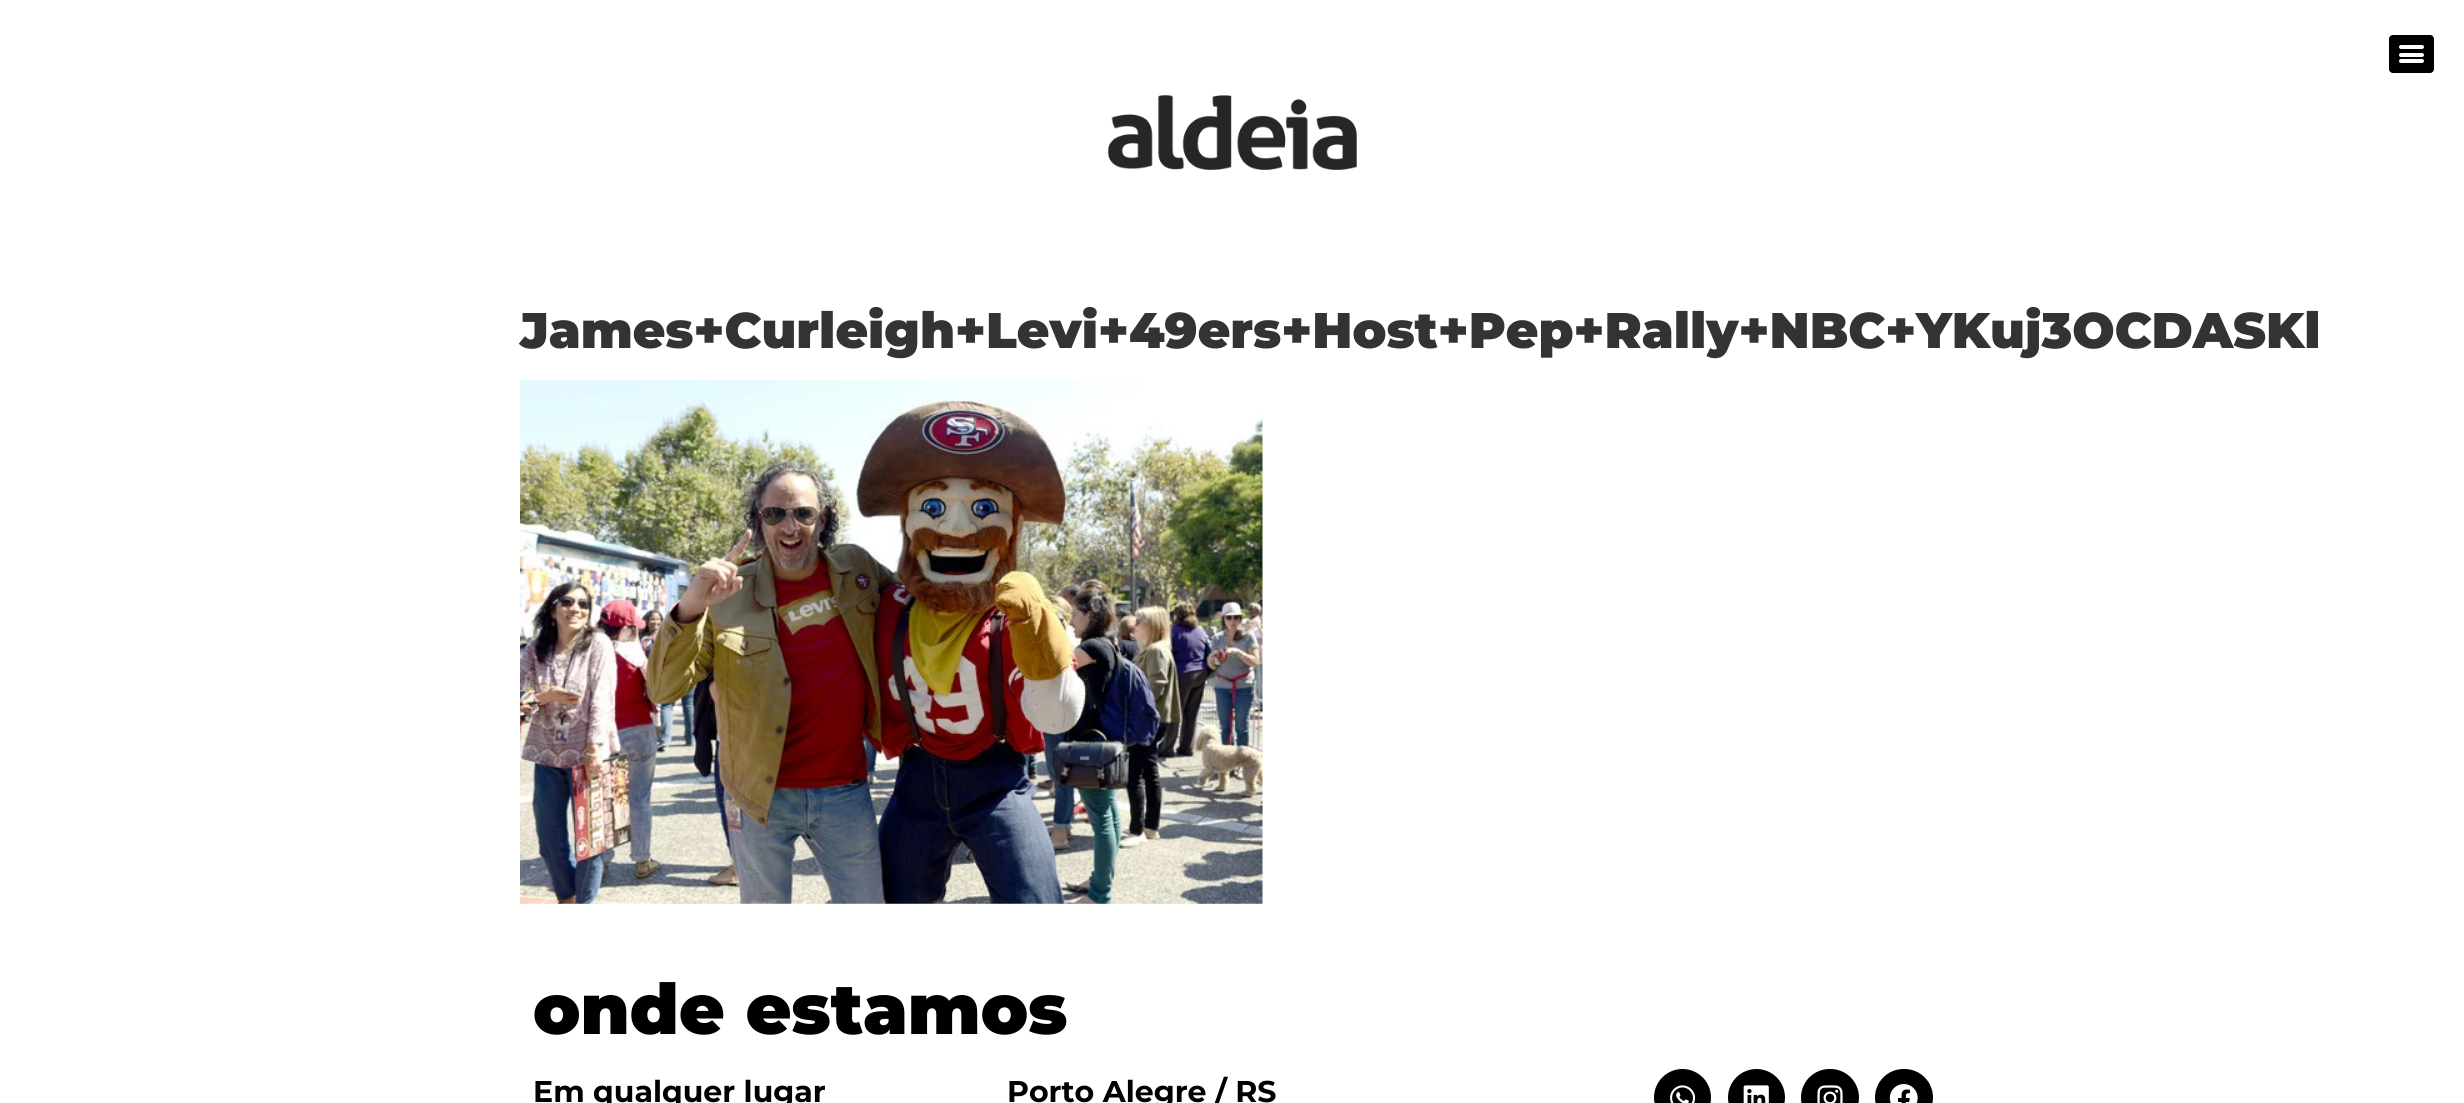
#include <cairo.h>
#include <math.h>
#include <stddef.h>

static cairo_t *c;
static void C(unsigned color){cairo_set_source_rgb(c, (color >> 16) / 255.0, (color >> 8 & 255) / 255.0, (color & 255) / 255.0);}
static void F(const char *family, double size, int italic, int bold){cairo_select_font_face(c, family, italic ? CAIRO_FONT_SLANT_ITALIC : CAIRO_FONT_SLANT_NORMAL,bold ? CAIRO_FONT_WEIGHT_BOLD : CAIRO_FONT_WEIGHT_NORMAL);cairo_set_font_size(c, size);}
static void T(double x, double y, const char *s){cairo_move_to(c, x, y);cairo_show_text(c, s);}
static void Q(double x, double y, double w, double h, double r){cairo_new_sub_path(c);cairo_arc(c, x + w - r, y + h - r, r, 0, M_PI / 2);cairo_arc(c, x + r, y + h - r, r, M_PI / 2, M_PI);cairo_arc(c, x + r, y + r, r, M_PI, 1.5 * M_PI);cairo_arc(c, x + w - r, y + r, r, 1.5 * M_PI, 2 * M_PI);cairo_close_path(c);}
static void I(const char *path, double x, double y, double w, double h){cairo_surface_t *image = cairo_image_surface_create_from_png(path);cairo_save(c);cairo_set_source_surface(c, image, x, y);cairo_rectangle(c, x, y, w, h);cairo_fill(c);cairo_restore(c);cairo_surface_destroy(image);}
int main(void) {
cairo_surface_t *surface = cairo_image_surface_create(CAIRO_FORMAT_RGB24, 2464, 1103);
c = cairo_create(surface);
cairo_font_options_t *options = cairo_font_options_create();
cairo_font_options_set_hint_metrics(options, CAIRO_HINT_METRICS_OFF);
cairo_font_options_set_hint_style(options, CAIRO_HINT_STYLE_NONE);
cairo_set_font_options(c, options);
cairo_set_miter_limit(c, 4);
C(0xffffff);
cairo_paint(c);
C(0x000000);
Q(2389,35,45,38,4);
cairo_fill(c);
C(0xffffff);
Q(2399,53,25,4,2);
cairo_fill(c);
Q(2399,45,25,4,2);
cairo_fill(c);
Q(2399,59,25,4,2);
cairo_fill(c);
I("1.png",1108,95,249,75);
F("Montserrat Black",50,0,0);
C(0x333333);
T(520,348,"James+Curleigh+Levi+49ers+Host+Pep+Rally+NBC+YKuj3OCDASKl");
I("2.png",520,380,743,524);
F("Montserrat Black",70,0,0);
C(0x000000);
T(533,1034,"onde estamos");
F("Montserrat",30,0,1);
T(533,1102,"Em qualquer lugar");
T(1007,1102,"Porto Alegre / RS");
cairo_new_path(c);
cairo_arc(c,1682.5,1097.5,28.5,0,2 * M_PI);
cairo_fill(c);
I("3.png",1670,1085,26,18);
cairo_arc(c,1756.5,1097.5,28.5,0,2 * M_PI);
cairo_fill(c);
I("4.png",1743,1085,26,18);
Q(1801,1069,58,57,28.5);
cairo_fill(c);
I("5.png",1817,1085,26,18);
Q(1875,1069,58,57,28.5);
cairo_fill(c);
I("6.png",1889,1084,29,19);
cairo_surface_write_to_png(surface, "o.png");
cairo_font_options_destroy(options);
cairo_destroy(c);
cairo_surface_destroy(surface);
return 0;
}
